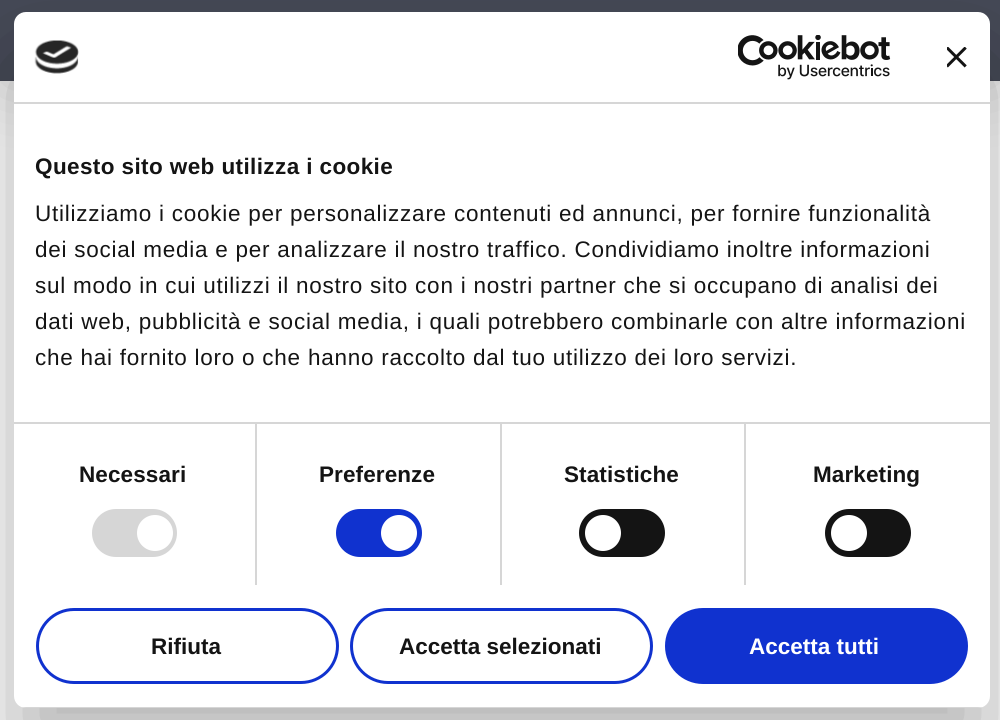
#include <cairo.h>
#include <math.h>
#include <stddef.h>

static cairo_t *c;
static void C(unsigned color){cairo_set_source_rgb(c, (color >> 16) / 255.0, (color >> 8 & 255) / 255.0, (color & 255) / 255.0);}
static void F(const char *family, double size, int italic, int bold){cairo_select_font_face(c, family, italic ? CAIRO_FONT_SLANT_ITALIC : CAIRO_FONT_SLANT_NORMAL,bold ? CAIRO_FONT_WEIGHT_BOLD : CAIRO_FONT_WEIGHT_NORMAL);cairo_set_font_size(c, size);}
static void T(double x, double y, const char *s){cairo_move_to(c, x, y);cairo_show_text(c, s);}
static void L(double x, double y, const char *s, double letter, double word){cairo_move_to(c, x, y);while (*s) {char ch[5] = {0};int n = 0;do ch[n++] = *s++; while ((*s & 0xC0) == 0x80);cairo_show_text(c, ch);cairo_rel_move_to(c, letter + word * (*ch == ' '), 0);}}
static void R(double x, double y, double w, double h){cairo_rectangle(c, x, y, w, h);cairo_fill(c);}
static void Q(double x, double y, double w, double h, double r){cairo_new_sub_path(c);cairo_arc(c, x + w - r, y + h - r, r, 0, M_PI / 2);cairo_arc(c, x + r, y + h - r, r, M_PI / 2, M_PI);cairo_arc(c, x + r, y + r, r, M_PI, 1.5 * M_PI);cairo_arc(c, x + w - r, y + r, r, 1.5 * M_PI, 2 * M_PI);cairo_close_path(c);}
static void S(double x, double y, double w, double h, double r, double blur, double alpha){cairo_push_group_with_content(c, CAIRO_CONTENT_ALPHA);cairo_set_operator(c, CAIRO_OPERATOR_SOURCE);for (int i = 15; i >= -15 && fmin(w, h) + blur * i / 3 > 0; i -= 2) {double e = blur * i / 6;cairo_set_source_rgba(c, 0, 0, 0, alpha * erfc((i - 1) / 8.5) / 2);Q(x - e, y - e, w + 2 * e, h + 2 * e, fmax(0, fmin(r + e + blur * .6, fmin(w, h) / 2 + e)));cairo_fill(c);}cairo_pattern_t *soft = cairo_pop_group(c);cairo_mask(c, soft);cairo_pattern_destroy(soft);}
static void I(const char *path, double x, double y, double w, double h){cairo_surface_t *image = cairo_image_surface_create_from_png(path);cairo_save(c);cairo_set_source_surface(c, image, x, y);cairo_rectangle(c, x, y, w, h);cairo_fill(c);cairo_restore(c);cairo_surface_destroy(image);}
int main(void) {
cairo_surface_t *surface = cairo_image_surface_create(CAIRO_FORMAT_RGB24, 1000, 720);
c = cairo_create(surface);
cairo_font_options_t *options = cairo_font_options_create();
cairo_font_options_set_hint_metrics(options, CAIRO_HINT_METRICS_OFF);
cairo_font_options_set_hint_style(options, CAIRO_HINT_STYLE_NONE);
cairo_set_font_options(c, options);
cairo_set_miter_limit(c, 4);
C(0xffffff);
cairo_paint(c);
C(0x000000);
S(0,5,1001,81,0,34,.15);
C(0x464a57);
R(0,0,1000,81);
C(0x000000);
S(14,60,976,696,12,51,.3);
C(0xffffff);
Q(14,12,976,696,12);
cairo_fill(c);
C(0xd6d6d6);
R(14,102,976,2);
I("1.png",34,40,45,34);
I("2.png",738,35,153,45);
I("3.png",947,47,20,21);
R(255,423,2,162);
R(500,423,2,162);
R(744,423,2,162);
R(14,422,976,2);
F("Liberation Sans",22.5,0,1);
C(0x141414);
L(35,174,"Questo sito web utilizza i cookie",.4,0);
F("Liberation Sans",22.5,0,0);
L(35,221,"Utilizziamo i cookie per personalizzare contenuti ed annunci, per fornire funzionalità",.75,0);
L(35,257,"dei social media e per analizzare il nostro traffico. Condividiamo inoltre informazioni",.75,0);
L(35,293,"sul modo in cui utilizzi il nostro sito con i nostri partner che si occupano di analisi dei",.75,0);
L(35,329,"dati web, pubblicità e social media, i quali potrebbero combinarle con altre informazioni",.75,0);
L(35,365,"che hai fornito loro o che hanno raccolto dal tuo utilizzo dei loro servizi.",.75,0);
F("Liberation Sans",22.5,0,1);
L(79,482,"Necessari",.1,0);
C(0xd6d6d6);
Q(92,509,85,48,24);
cairo_fill(c);
C(0xffffff);
cairo_arc(c,155,533,18,0,2 * M_PI);
cairo_fill(c);
C(0x141414);
L(319,482,"Preferenze",.1,0);
C(0x1032cf);
Q(336,509,86,48,24);
cairo_fill(c);
C(0xffffff);
cairo_arc(c,399,533,18,0,2 * M_PI);
cairo_fill(c);
C(0x141414);
L(564,482,"Statistiche",.1,0);
Q(579,509,86,48,24);
cairo_fill(c);
C(0xffffff);
cairo_arc(c,603,533,18,0,2 * M_PI);
cairo_fill(c);
C(0x141414);
L(813,482,"Marketing",.1,0);
Q(825,509,86,48,24);
cairo_fill(c);
C(0xffffff);
cairo_arc(c,849,533,18,0,2 * M_PI);
cairo_fill(c);
cairo_save(c);
Q(14,12,976,696,12);
cairo_clip(c);
C(0xd6d6d6);
R(14,707,976,1);
cairo_restore(c);
Q(37.5,609.5,300,73,36.5);
C(0x1032cf);
cairo_set_line_width(c,3);
cairo_stroke(c);
C(0x141414);
T(151,654,"Rifiuta");
Q(351.5,609.5,300,73,36.5);
C(0x1032cf);
cairo_stroke(c);
C(0x141414);
T(399,654,"Accetta selezionati");
C(0x1032cf);
Q(666.5,609.5,300,73,36.5);
cairo_fill_preserve(c);
cairo_stroke(c);
C(0xffffff);
T(749,654,"Accetta tutti");
cairo_surface_write_to_png(surface, "o.png");
cairo_font_options_destroy(options);
cairo_destroy(c);
cairo_surface_destroy(surface);
return 0;
}
